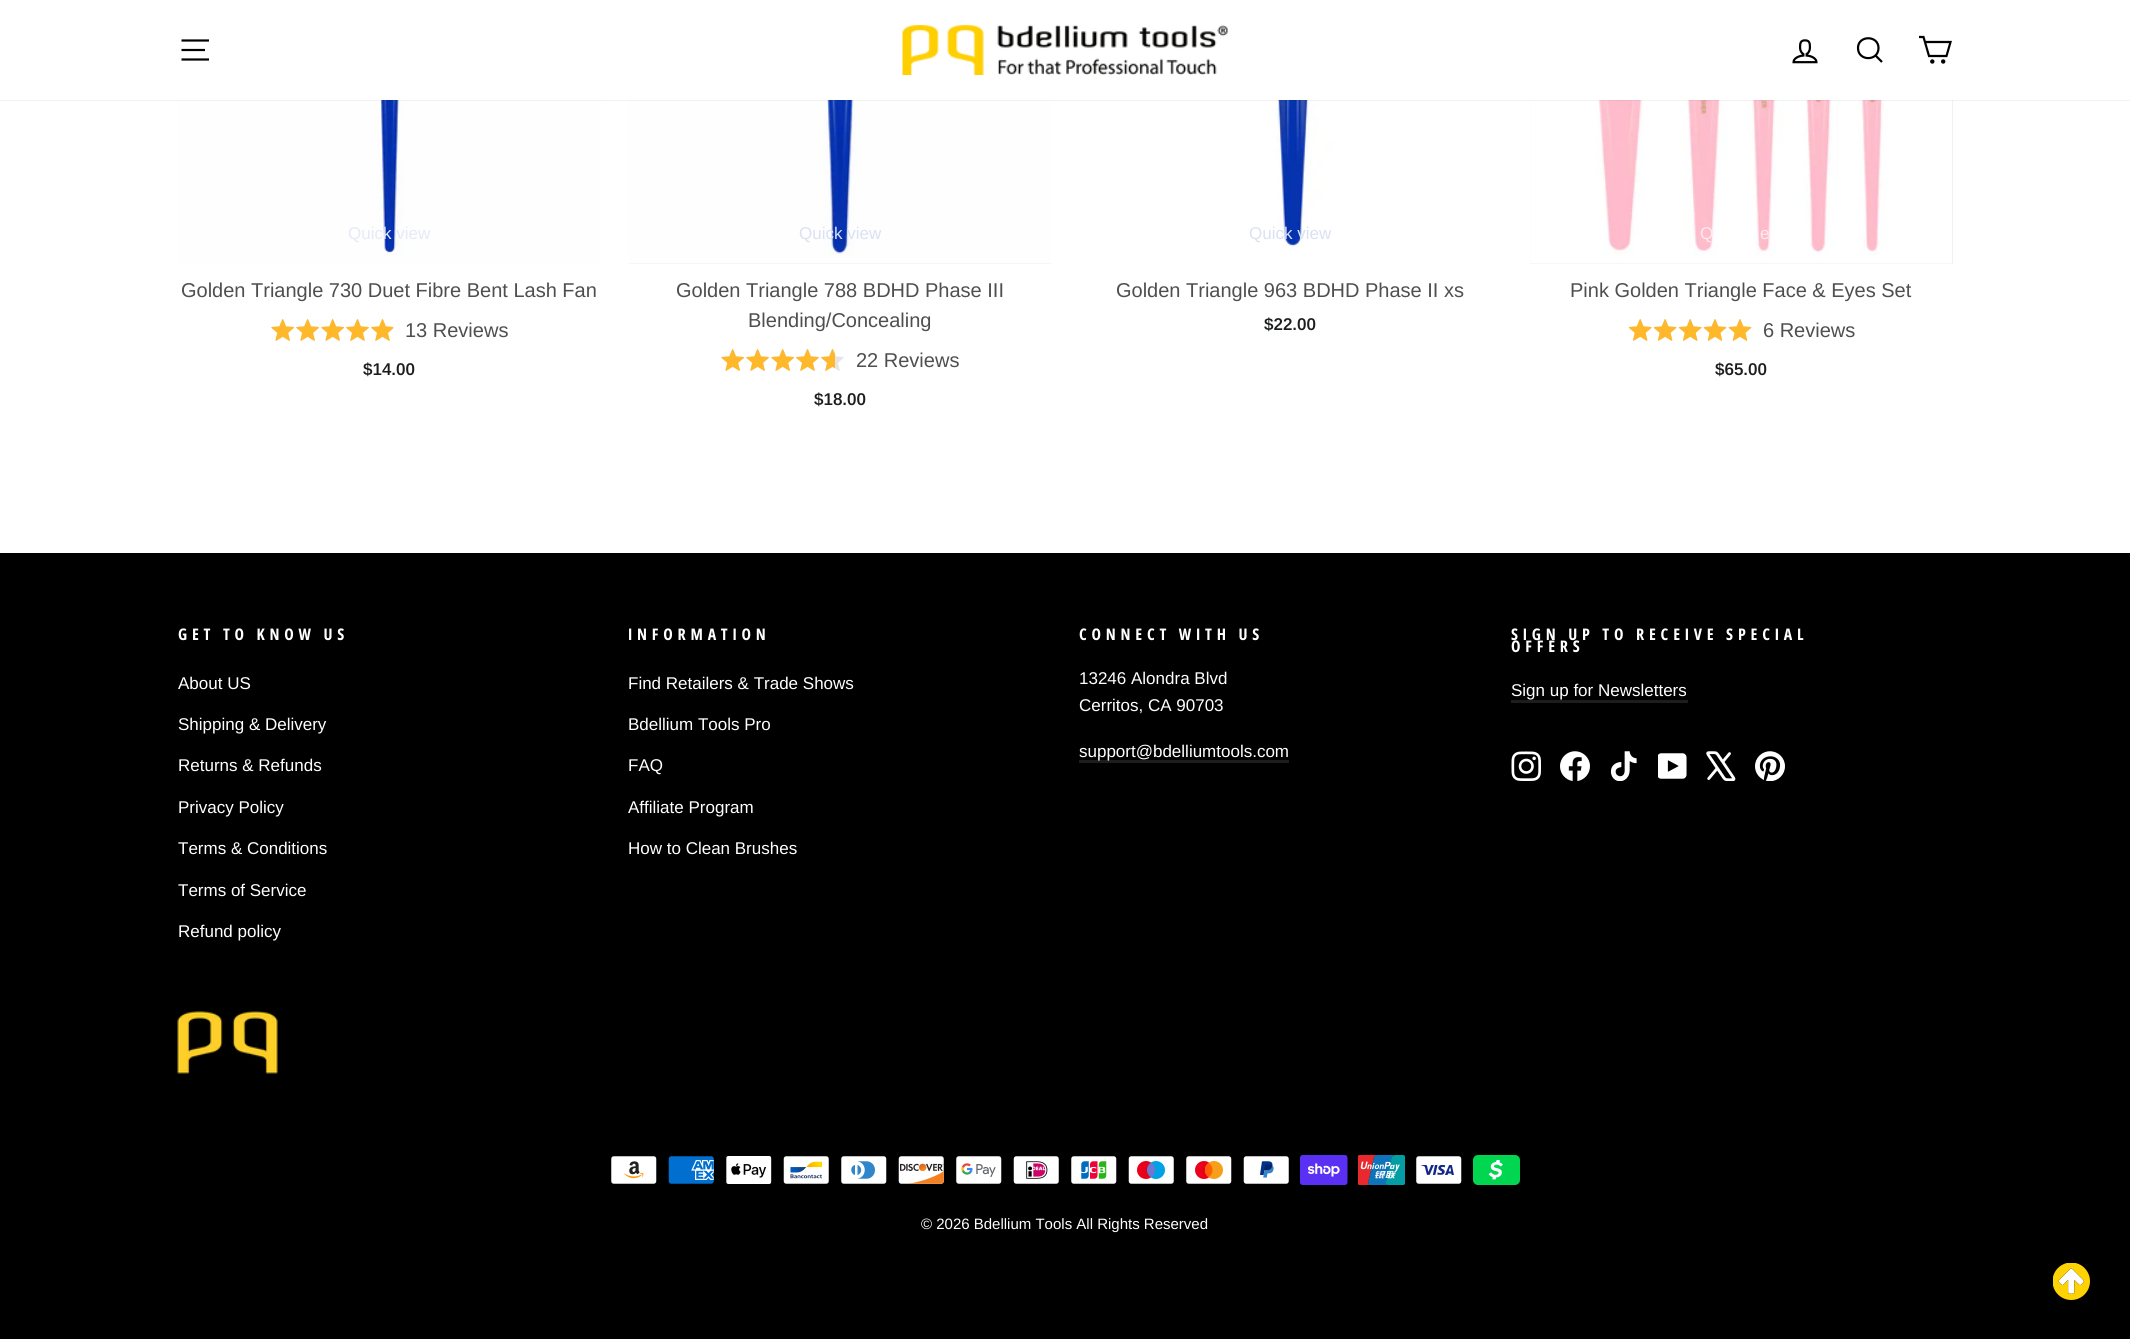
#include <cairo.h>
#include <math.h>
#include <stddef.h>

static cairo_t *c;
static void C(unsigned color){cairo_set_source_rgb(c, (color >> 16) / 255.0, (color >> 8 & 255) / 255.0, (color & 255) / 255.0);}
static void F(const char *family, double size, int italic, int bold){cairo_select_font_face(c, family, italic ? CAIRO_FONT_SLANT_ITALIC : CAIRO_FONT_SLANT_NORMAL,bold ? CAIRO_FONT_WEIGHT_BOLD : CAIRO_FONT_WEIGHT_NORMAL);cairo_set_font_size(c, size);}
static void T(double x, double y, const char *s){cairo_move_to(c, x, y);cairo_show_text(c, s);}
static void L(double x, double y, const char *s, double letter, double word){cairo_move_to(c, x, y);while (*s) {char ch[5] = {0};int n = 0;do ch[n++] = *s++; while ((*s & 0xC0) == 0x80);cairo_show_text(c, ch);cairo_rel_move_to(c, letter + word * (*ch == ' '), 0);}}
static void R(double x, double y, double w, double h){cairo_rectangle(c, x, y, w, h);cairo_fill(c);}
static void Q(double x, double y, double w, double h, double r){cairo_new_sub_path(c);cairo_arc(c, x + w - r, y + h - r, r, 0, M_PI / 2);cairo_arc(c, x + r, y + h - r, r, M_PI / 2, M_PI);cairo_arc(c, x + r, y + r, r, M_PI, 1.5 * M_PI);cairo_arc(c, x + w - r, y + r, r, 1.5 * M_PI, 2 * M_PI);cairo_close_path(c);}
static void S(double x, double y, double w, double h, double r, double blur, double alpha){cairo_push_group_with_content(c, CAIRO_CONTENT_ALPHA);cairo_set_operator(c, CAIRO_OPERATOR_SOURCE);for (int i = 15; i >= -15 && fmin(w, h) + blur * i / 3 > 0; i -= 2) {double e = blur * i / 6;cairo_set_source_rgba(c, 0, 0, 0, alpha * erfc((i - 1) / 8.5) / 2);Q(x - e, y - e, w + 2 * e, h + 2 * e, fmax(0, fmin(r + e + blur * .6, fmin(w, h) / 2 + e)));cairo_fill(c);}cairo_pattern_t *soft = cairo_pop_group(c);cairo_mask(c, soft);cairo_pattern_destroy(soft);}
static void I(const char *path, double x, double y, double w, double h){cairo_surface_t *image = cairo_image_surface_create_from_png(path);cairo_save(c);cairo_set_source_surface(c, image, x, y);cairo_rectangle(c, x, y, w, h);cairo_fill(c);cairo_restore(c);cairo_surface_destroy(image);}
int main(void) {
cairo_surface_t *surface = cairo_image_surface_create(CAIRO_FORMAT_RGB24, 2130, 1339);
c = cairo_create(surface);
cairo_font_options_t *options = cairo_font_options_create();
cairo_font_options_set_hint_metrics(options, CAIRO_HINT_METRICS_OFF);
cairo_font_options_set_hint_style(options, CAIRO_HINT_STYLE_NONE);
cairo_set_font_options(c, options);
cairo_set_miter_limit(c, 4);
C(0xffffff);
cairo_paint(c);
I("3.png",178,100,423,164);
C(0xe5e5e5);
R(629,100,422,164);
I("6.png",629,100,422,164);
I("8.png",1079,100,424,164);
R(1530,100,423,164);
I("9.png",1530,100,423,164);
C(0x000000);
S(0,0,2130,100,0,.5,.2);
C(0xffffff);
R(0,0,2130,100);
cairo_new_path(c);
cairo_move_to(c,181.5,40.5);
cairo_line_to(c,209,40.5);
cairo_move_to(c,181.5,50);
cairo_line_to(c,205,50);
cairo_move_to(c,181.5,59.5);
cairo_line_to(c,209,59.5);
C(0x000000);
cairo_set_line_width(c,2.2);
cairo_stroke(c);
I("1.png",902,24,326,51);
I("2.png",1792,39,26,25);
cairo_new_path(c);
cairo_move_to(c,1878.5,48);
cairo_curve_to(c,1878.5,61.5,1858,61.5,1858,48);
cairo_curve_to(c,1858,35,1878.5,35,1878.5,48);
cairo_close_path(c);
cairo_move_to(c,1882,62);
cairo_line_to(c,1875.5,55.5);
cairo_stroke(c);
cairo_new_path(c);
cairo_move_to(c,1925,42);
cairo_line_to(c,1950.5,42);
cairo_line_to(c,1946.5,56);
cairo_line_to(c,1929,56);
cairo_line_to(c,1923.5,37);
cairo_line_to(c,1919,37);
cairo_stroke(c);
cairo_arc(c,1932.3,61.5,1.1,0,2 * M_PI);
cairo_stroke(c);
cairo_arc(c,1943.2,61.5,1.1,0,2 * M_PI);
cairo_stroke(c);
F("Arimo",17,0,0);
C(0xe6eaf6);
T(348,239,"Quick view");
F("Arimo",20,0,0);
C(0x4f4f4f);
T(181,297,"Golden Triangle 730 Duet Fibre Bent Lash Fan");
I("4.png",271,319,123,22);
I("5.png",271,319,122,22);
T(405,337,"13 Reviews");
F("Arimo SemiBold",17,0,0);
C(0x1c1d1d);
T(363,375,"$14.00");
F("Arimo",17,0,0);
C(0xdbe1f3);
T(799,239,"Quick view");
F("Arimo",20,0,0);
C(0x4f4f4f);
T(676,297,"Golden Triangle 788 BDHD Phase III");
T(748,327,"Blending/Concealing");
I("4.png",721,349,123,22);
I("7.png",721,349,114,22);
T(856,367,"22 Reviews");
F("Arimo SemiBold",17,0,0);
C(0x1c1d1d);
T(814,405,"$18.00");
F("Arimo",17,0,0);
C(0xdbe1f3);
T(1249,239,"Quick view");
F("Arimo",20,0,0);
C(0x4f4f4f);
T(1116,297,"Golden Triangle 963 BDHD Phase II xs");
F("Arimo SemiBold",17,0,0);
C(0x1c1d1d);
T(1264,330,"$22.00");
F("Arimo",17,0,0);
C(0xfee9ee);
T(1700,239,"Q");
T(1760,239,"e");
F("Arimo",20,0,0);
C(0x4f4f4f);
T(1570,297,"Pink Golden Triangle Face & Eyes Set");
I("11.png",1629,319,123,22);
I("10.png",1628,319,124,22);
T(1763,337,"6 Reviews");
F("Arimo SemiBold",17,0,0);
C(0x1c1d1d);
T(1715,375,"$65.00");
C(0x000000);
R(0,553,2130,786);
F("Open Sans Condensed",16,0,1);
C(0xffffff);
L(178,640,"GET TO KNOW US",4.8,0);
F("Arimo",17,0,0);
T(178,689,"About US");
T(178,730,"Shipping & Delivery");
T(178,771,"Returns & Refunds");
T(178,813,"Privacy Policy");
T(178,854,"Terms & Conditions");
T(178,896,"Terms of Service");
T(178,937,"Refund policy");
F("Open Sans Condensed",16,0,1);
L(628,640,"INFORMATION",4.8,0);
F("Arimo",17,0,0);
T(628,689,"Find Retailers & Trade Shows");
T(628,730,"Bdellium Tools Pro");
T(628,771,"FAQ");
T(628,813,"Affiliate Program");
T(628,854,"How to Clean Brushes");
F("Open Sans Condensed",16,0,1);
L(1079,640,"CONNECT WITH US",4.8,0);
F("Arimo",17,0,0);
T(1079,684,"13246 Alondra Blvd");
T(1079,711,"Cerritos, CA 90703");
C(0x1c1d1d);
R(1079,760,210,3);
C(0xffffff);
T(1079,757,"support@bdelliumtools.com");
F("Open Sans Condensed",16,0,1);
L(1511,640,"SIGN UP TO RECEIVE SPECIAL",4.8,0);
L(1511,652,"OFFERS",4.8,0);
F("Arimo",17,0,0);
T(1511,696,"Sign up for Newsletters");
C(0x1c1d1d);
R(1511,700,177,3);
I("12.png",1511,751,30,30);
I("13.png",1560,751,30,30);
I("14.png",1610,751,27,30);
I("15.png",1658,753,29,26);
I("16.png",1706,751,30,30);
I("17.png",1755,751,30,30);
I("18.png",177,1011,101,63);
I("19.png",611,1156,46,28);
I("20.png",668,1156,46,28);
I("21.png",726,1156,46,28);
I("22.png",783,1156,46,28);
I("23.png",841,1156,46,28);
I("24.png",898,1156,46,28);
I("25.png",956,1156,46,28);
I("26.png",1013,1156,46,28);
I("27.png",1071,1156,46,28);
I("28.png",1128,1156,46,28);
I("29.png",1186,1156,46,28);
I("30.png",1243,1156,46,28);
I("31.png",1300,1155,48,30);
I("32.png",1358,1155,47,30);
I("33.png",1416,1156,46,28);
I("34.png",1473,1155,47,30);
F("Arimo",15,0,0);
C(0xffffff);
T(921,1229,"© 2026 Bdellium Tools All Rights Reserved");
I("35.png",2053,1263,37,37);
cairo_surface_write_to_png(surface, "o.png");
cairo_font_options_destroy(options);
cairo_destroy(c);
cairo_surface_destroy(surface);
return 0;
}
